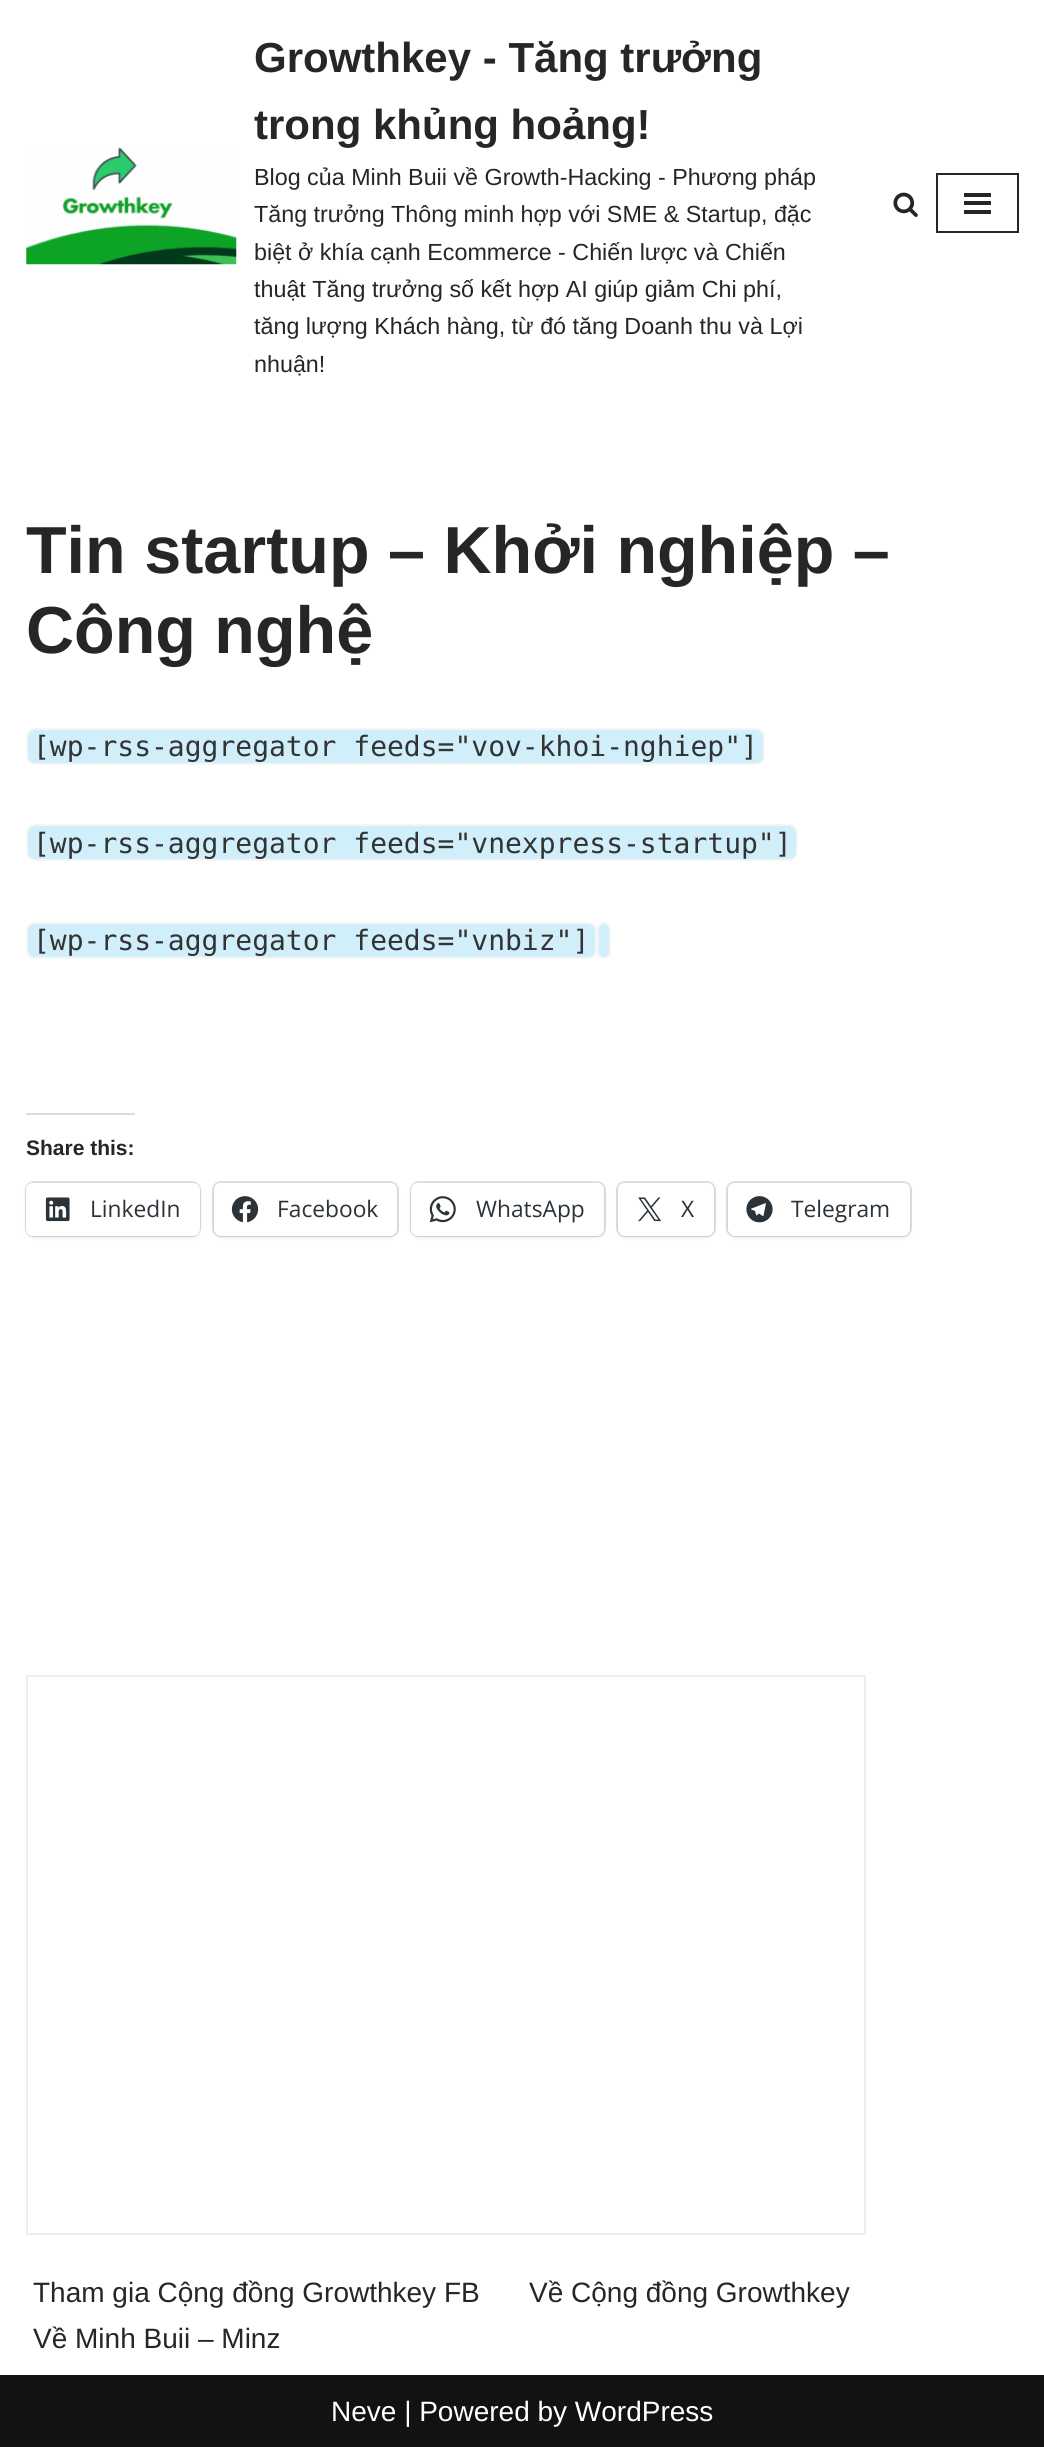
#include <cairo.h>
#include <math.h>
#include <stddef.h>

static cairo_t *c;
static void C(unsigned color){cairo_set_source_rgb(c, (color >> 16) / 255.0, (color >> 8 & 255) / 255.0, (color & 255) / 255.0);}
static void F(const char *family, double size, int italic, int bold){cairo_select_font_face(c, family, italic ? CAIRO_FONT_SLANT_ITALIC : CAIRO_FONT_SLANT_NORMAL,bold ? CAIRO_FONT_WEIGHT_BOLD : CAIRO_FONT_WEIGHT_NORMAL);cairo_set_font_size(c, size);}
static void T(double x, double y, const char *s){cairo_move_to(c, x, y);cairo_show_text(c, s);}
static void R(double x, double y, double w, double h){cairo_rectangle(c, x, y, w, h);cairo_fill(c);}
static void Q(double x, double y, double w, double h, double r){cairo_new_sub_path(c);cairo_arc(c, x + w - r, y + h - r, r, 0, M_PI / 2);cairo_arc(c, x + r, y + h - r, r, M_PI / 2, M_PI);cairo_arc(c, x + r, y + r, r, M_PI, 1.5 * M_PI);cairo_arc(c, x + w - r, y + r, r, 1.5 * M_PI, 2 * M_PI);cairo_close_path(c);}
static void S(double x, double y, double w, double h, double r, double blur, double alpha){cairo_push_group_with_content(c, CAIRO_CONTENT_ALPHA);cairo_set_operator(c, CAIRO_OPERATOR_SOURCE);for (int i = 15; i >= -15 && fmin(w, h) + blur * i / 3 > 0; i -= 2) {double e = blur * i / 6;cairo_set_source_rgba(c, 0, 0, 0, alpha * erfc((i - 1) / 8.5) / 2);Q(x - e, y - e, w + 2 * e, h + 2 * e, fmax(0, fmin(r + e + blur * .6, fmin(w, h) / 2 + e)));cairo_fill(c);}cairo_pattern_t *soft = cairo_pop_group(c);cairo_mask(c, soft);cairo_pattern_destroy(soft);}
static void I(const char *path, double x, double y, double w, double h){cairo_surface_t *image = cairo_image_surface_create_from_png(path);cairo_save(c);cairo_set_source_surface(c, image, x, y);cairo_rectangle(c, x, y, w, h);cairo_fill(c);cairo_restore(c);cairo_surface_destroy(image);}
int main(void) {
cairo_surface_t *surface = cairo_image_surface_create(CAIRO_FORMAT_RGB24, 1044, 2447);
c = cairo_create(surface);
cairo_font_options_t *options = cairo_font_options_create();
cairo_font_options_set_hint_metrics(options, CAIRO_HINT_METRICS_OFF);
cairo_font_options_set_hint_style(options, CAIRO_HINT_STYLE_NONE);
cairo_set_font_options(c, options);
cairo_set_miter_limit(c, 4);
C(0xffffff);
cairo_paint(c);
I("1.png",26,147,211,118);
F("Liberation Sans",42,0,1);
C(0x272626);
T(254,72,"Growthkey - Tăng trưởng");
T(254,139,"trong khủng hoảng!");
F("Liberation Sans",23.3,0,0);
T(254,185,"Blog của Minh Buii về Growth-Hacking - Phương pháp");
T(254,222,"Tăng trưởng Thông minh hợp với SME & Startup, đặc");
T(254,260,"biệt ở khía cạnh Ecommerce - Chiến lược và Chiến");
T(254,297,"thuật Tăng trưởng số kết hợp AI giúp giảm Chi phí,");
T(254,334,"tăng lượng Khách hàng, từ đó tăng Doanh thu và Lợi");
T(254,372,"nhuận!");
I("2.png",893,192,25,25);
cairo_rectangle(c,937,174,81,58);
cairo_stroke(c);
R(964,193,27,4);
R(964,201,27,4);
R(964,210,27,4);
F("Liberation Sans",66.5,0,1);
T(26,573,"Tin startup – Khởi nghiệp –");
T(26,653,"Công nghệ");
C(0xd0effb);
Q(27,729,737,35,8);
cairo_fill_preserve(c);
C(0xf4f5f7);
cairo_stroke(c);
F("DejaVu Sans Mono",28,0,0);
C(0x333333);
T(33,756,"[wp-rss-aggregator feeds=\"vov-khoi-nghiep\"]");
C(0xd0effb);
Q(27,825,770,35,8);
cairo_fill_preserve(c);
C(0xf4f5f7);
cairo_stroke(c);
C(0x333333);
T(33,853,"[wp-rss-aggregator feeds=\"vnexpress-startup\"]");
C(0xd0effb);
Q(27,923,569,35,8);
cairo_fill_preserve(c);
C(0xf4f5f7);
cairo_stroke(c);
C(0x333333);
T(33,950,"[wp-rss-aggregator feeds=\"vnbiz\"]");
C(0xd0effb);
Q(598,923,12,35,6);
cairo_fill_preserve(c);
C(0xf4f5f7);
cairo_stroke(c);
C(0xdcdcde);
R(26,1113,109,2);
F("Liberation Sans",21,0,1);
C(0x272626);
T(26,1155,"Share this:");
Q(26,1182,174,54,8);
C(0xe0e0e0);
cairo_stroke(c);
C(0x000000);
S(26,1185,174,52,7,2,.12);
C(0xffffff);
Q(26,1183,174,53,7);
cairo_fill(c);
I("3.png",45,1197,25,25);
F("Open Sans",22.75,0,0);
C(0x2c3338);
T(90,1217,"LinkedIn");
Q(213,1182,185,54,8);
C(0xe0e0e0);
cairo_stroke(c);
C(0x000000);
S(214,1185,183,52,7,2,.12);
C(0xffffff);
Q(214,1183,183,53,7);
cairo_fill(c);
I("4.png",231,1196,28,27);
C(0x2c3338);
T(277,1217,"Facebook");
Q(411,1182,194,54,8);
C(0xe0e0e0);
cairo_stroke(c);
C(0x000000);
S(411,1185,193,52,7,2,.12);
C(0xffffff);
Q(411,1183,193,53,7);
cairo_fill(c);
I("5.png",429,1196,27,27);
C(0x2c3338);
T(476,1217,"WhatsApp");
Q(617,1182,98,54,8);
C(0xe0e0e0);
cairo_stroke(c);
C(0x000000);
S(618,1185,96,52,7,2,.12);
C(0xffffff);
Q(618,1183,96,53,7);
cairo_fill(c);
I("6.png",638,1197,23,25);
C(0x2c3338);
T(681,1217,"X");
Q(727,1182,184,54,8);
C(0xe0e0e0);
cairo_stroke(c);
C(0x000000);
S(728,1185,182,52,7,2,.12);
C(0xffffff);
Q(728,1183,182,53,7);
cairo_fill(c);
I("7.png",746,1196,27,27);
C(0x2c3338);
T(791,1217,"Telegram");
cairo_rectangle(c,27,1676,838,558);
C(0xeeeeee);
cairo_stroke(c);
F("Liberation Sans",28,0,0);
C(0x272626);
T(33,2302,"Tham gia Cộng đồng Growthkey FB");
T(529,2302,"Về Cộng đồng Growthkey");
T(33,2348,"Về Minh Buii – Minz");
C(0x121212);
R(0,2375,1044,72);
C(0xffffff);
T(331,2421,"Neve | Powered by WordPress");
cairo_surface_write_to_png(surface, "o.png");
cairo_font_options_destroy(options);
cairo_destroy(c);
cairo_surface_destroy(surface);
return 0;
}
